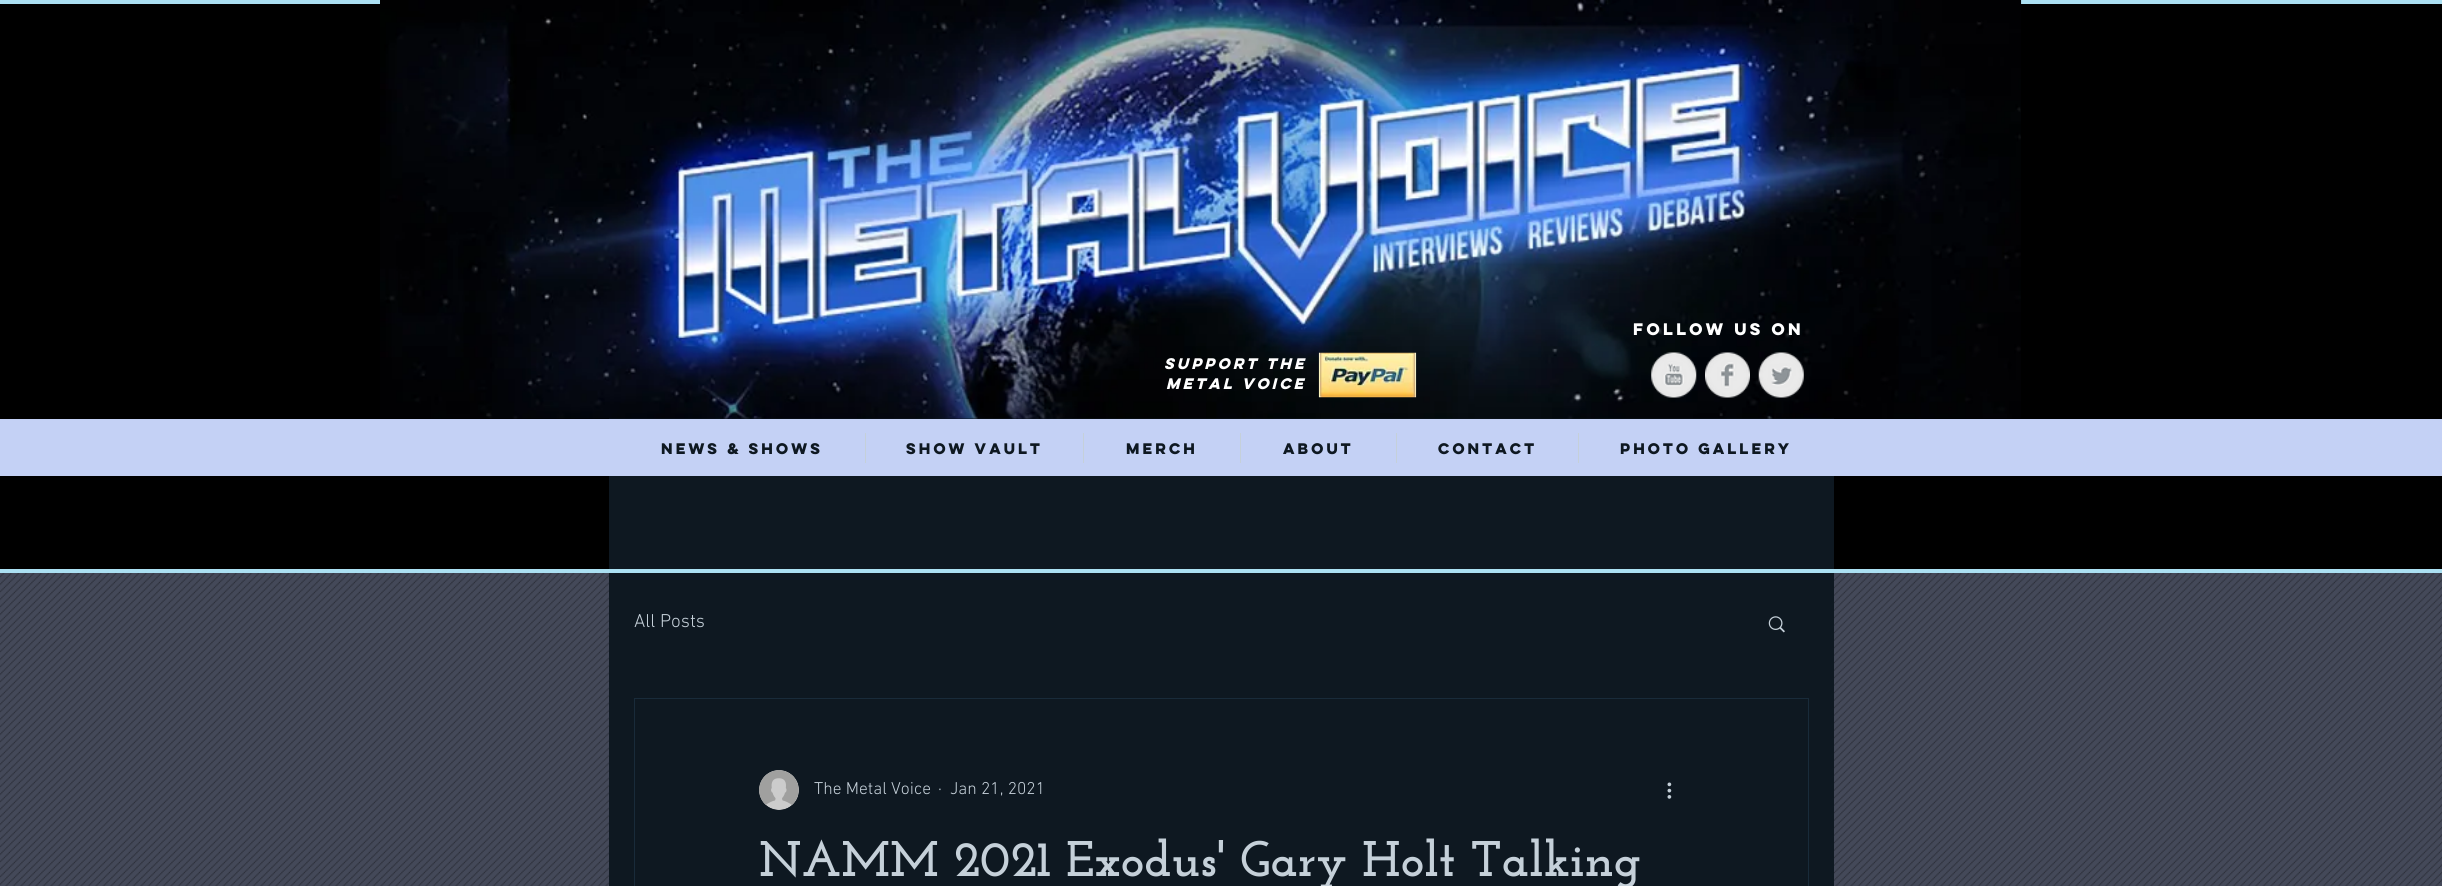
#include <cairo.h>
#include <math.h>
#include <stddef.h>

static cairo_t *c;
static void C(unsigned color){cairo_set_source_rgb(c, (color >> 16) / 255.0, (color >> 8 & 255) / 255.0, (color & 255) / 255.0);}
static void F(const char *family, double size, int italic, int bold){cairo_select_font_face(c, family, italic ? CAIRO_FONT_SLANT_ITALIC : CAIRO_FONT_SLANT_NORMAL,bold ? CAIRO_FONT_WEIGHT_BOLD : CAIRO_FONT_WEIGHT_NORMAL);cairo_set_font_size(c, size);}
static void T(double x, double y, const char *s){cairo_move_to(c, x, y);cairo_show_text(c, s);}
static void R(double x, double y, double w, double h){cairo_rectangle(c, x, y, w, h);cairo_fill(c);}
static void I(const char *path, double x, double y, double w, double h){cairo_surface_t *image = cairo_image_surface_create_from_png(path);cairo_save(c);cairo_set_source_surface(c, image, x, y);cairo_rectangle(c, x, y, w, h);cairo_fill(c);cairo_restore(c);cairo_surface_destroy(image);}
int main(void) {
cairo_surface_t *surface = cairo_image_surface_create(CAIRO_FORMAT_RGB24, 2442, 886);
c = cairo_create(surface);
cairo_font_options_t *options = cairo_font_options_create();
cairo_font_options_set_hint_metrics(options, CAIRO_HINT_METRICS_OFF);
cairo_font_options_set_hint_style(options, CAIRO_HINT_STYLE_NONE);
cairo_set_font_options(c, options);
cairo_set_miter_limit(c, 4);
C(0x444959);
cairo_paint(c);
C(0x000000);
R(0,4,2442,565);
C(0xabe0f2);
R(0,0,2442,4);
R(0,569,2442,4);
C(0x0e1821);
R(609,418,1225,151);
I("1.png",380,0,1642,419);
F("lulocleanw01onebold",15,0,1);
C(0xffffff);
T(1633,335,"FOLLOW US ON");
F("lulocleanw01onebold",13.75,1,1);
T(1164,369,"SUPPORT THE");
T(1166,389,"METAL VOICE");
I("2.png",1318,352,99,46);
I("3.png",1651,352,46,46);
I("4.png",1705,352,45,46);
I("5.png",1758,352,46,46);
C(0xc4d1f5);
R(0,419,2442,57);
F("lulocleanw01onebold",13.75,0,1);
C(0x0e1821);
T(661,454,"News & Shows");
C(0xc5d0d9);
R(865,433,1,30);
C(0x0e1821);
T(906,454,"Show Vault");
C(0xc5d0d9);
R(1083,433,1,30);
C(0x0e1821);
T(1126,454,"Merch");
C(0xc5d0d9);
R(1240,433,1,30);
C(0x0e1821);
T(1283,454,"About");
C(0xc5d0d9);
R(1396,433,1,30);
C(0x0e1821);
T(1438,454,"Contact");
C(0xc5d0d9);
R(1578,433,1,30);
C(0x0e1821);
T(1620,454,"Photo Gallery");
I("9.png",0,573,2442,313);
R(609,573,1225,313);
F("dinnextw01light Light",19,0,0);
C(0xc5d0d9);
T(634,627,"All Posts");
I("6.png",1768,616,17,17);
cairo_rectangle(c,634.5,698.5,1174,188);
C(0x192b3a);
cairo_set_line_width(c,1);
cairo_stroke(c);
I("7.png",759,770,40,40);
F("dinnextw01light Light",17.5,0,0);
C(0xc5d0d9);
T(814,794,"The Metal Voice");
T(938,794,"·");
T(950,794,"Jan 21, 2021");
I("8.png",1667,782,5,17);
F("Josefin Slab",50,0,1);
T(759,876,"NAMM 2021 Exodus' Gary Holt Talking");
cairo_surface_write_to_png(surface, "o.png");
cairo_font_options_destroy(options);
cairo_destroy(c);
cairo_surface_destroy(surface);
return 0;
}
